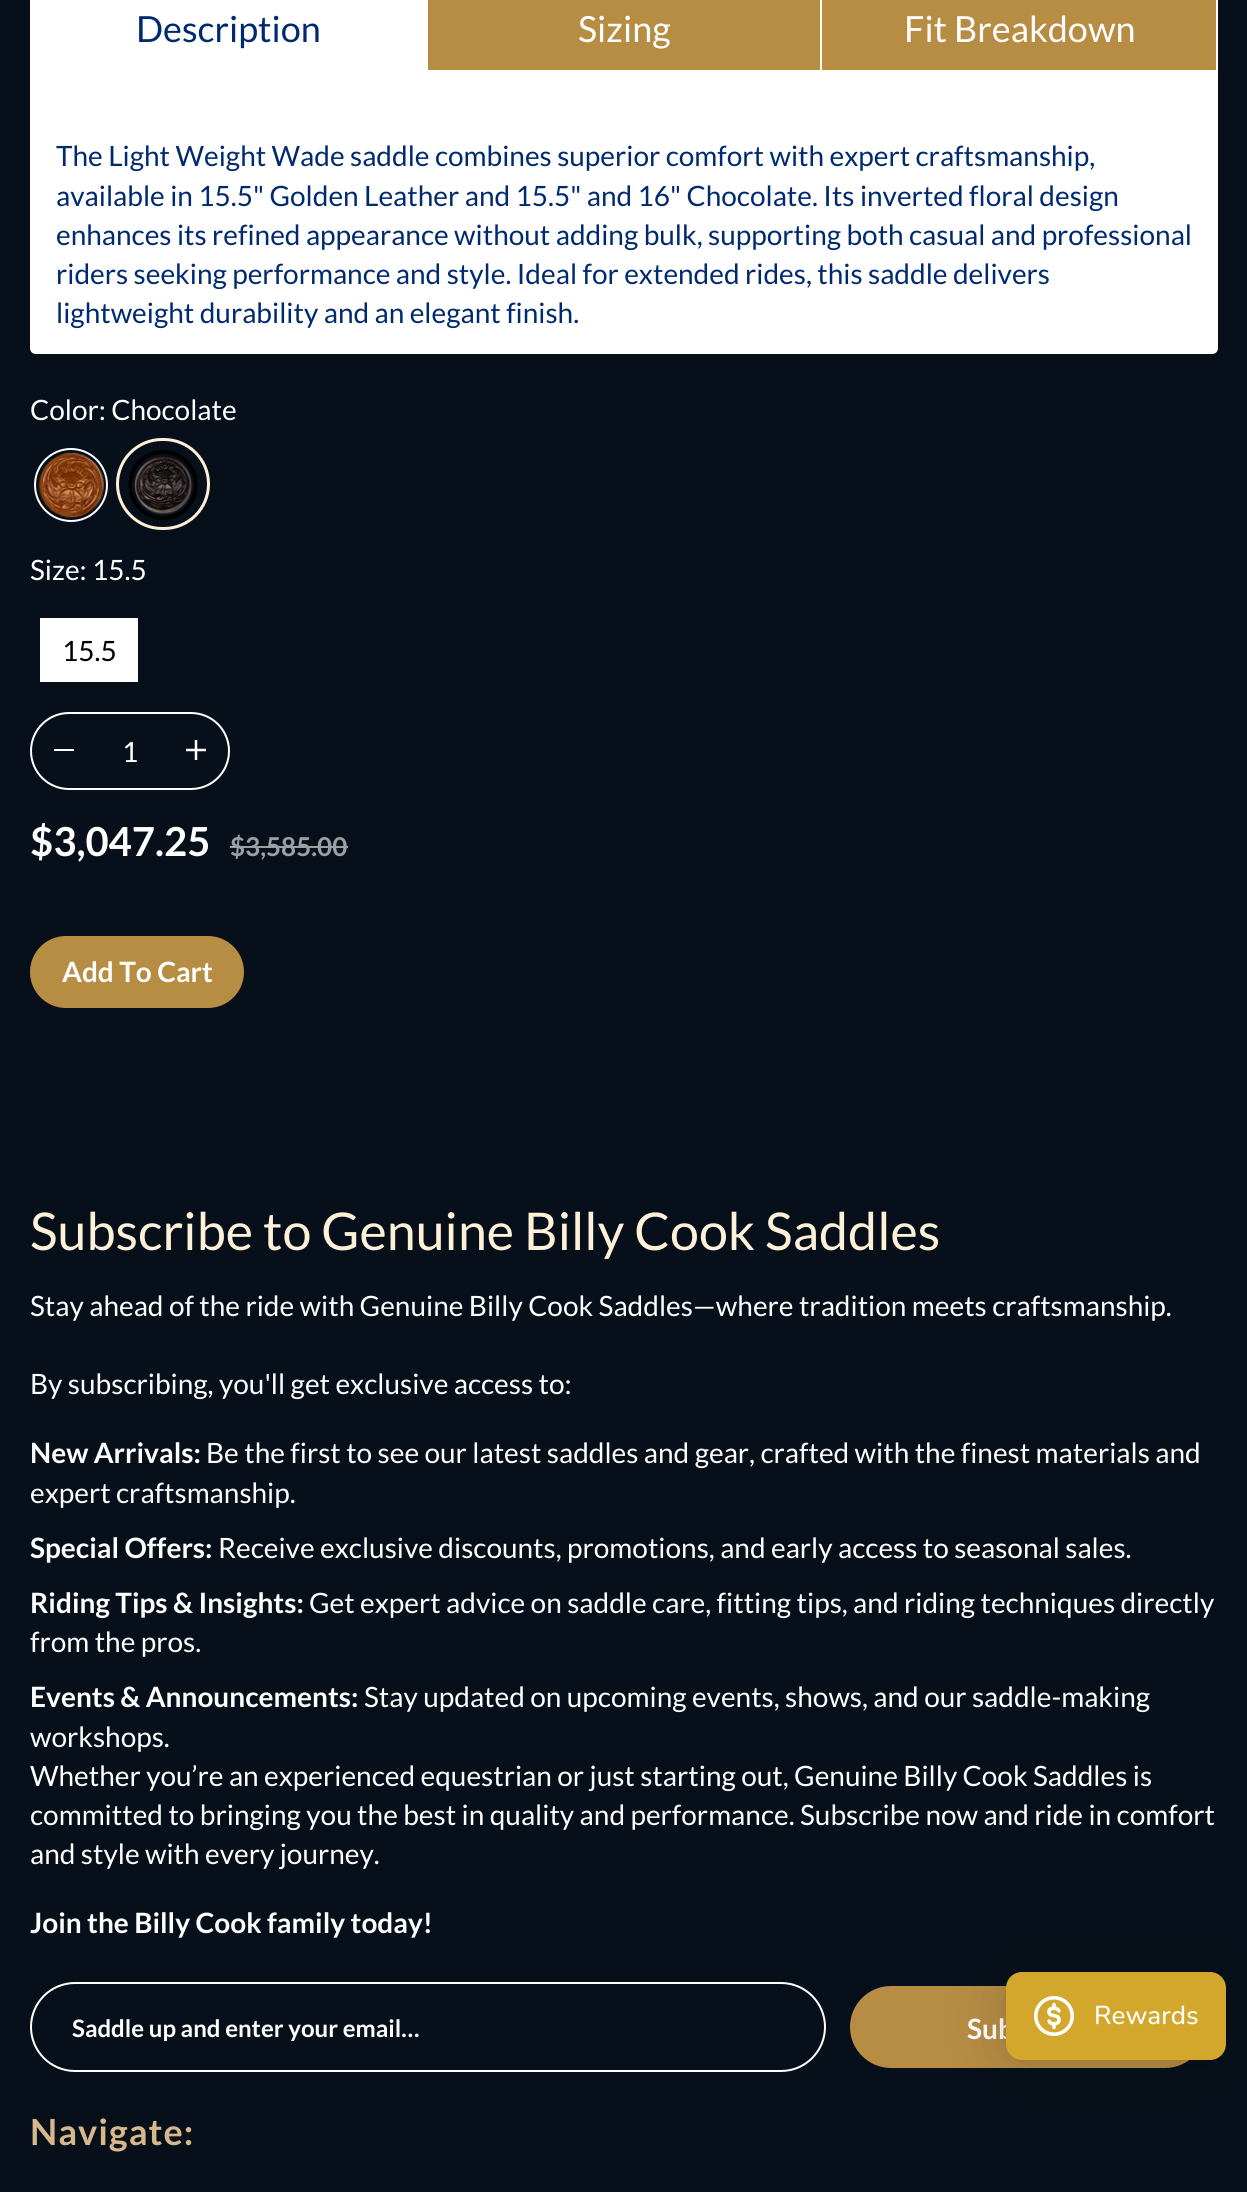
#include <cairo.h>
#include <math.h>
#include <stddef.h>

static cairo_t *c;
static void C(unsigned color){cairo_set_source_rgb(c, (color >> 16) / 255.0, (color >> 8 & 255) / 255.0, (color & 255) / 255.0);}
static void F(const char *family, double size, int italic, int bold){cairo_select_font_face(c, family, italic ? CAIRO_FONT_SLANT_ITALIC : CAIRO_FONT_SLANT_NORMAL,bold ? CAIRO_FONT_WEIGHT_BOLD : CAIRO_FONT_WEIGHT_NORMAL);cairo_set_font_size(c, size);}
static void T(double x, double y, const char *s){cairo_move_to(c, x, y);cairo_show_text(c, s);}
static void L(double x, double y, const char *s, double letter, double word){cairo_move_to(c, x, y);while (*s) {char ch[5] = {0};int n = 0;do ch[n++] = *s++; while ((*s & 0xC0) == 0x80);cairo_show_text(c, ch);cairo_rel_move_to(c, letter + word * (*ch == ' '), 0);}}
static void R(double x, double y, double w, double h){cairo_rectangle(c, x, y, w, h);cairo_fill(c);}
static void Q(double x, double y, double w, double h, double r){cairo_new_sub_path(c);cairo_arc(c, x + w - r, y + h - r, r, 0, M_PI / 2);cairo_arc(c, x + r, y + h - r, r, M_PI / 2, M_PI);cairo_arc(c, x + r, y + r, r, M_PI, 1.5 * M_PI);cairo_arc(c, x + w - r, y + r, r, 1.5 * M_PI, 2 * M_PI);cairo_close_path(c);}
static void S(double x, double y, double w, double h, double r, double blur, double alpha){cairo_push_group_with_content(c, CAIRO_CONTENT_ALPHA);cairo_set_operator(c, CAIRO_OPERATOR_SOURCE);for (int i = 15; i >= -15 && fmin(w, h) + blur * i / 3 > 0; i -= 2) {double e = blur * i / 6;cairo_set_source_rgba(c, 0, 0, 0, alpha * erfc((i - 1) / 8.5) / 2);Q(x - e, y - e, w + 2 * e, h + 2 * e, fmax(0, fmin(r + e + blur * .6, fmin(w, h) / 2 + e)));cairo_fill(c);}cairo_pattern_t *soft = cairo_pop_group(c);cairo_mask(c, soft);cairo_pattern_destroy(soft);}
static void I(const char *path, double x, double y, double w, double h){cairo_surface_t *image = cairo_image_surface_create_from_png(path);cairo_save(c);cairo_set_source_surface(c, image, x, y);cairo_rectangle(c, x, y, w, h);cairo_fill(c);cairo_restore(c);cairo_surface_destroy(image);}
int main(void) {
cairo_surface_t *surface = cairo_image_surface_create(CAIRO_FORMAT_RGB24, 1247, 2192);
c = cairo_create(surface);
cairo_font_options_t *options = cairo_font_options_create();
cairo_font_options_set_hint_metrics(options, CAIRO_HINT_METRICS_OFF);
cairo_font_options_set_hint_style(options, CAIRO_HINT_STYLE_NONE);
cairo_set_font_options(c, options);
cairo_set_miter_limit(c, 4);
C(0x07101a);
cairo_paint(c);
C(0xffffff);
R(32,0,394,70);
cairo_new_path(c);
cairo_move_to(c,31,71);
cairo_line_to(c,1217,71);
cairo_line_to(c,1217,348);
cairo_curve_to(c,1217,351,1215,353,1212,353);
cairo_line_to(c,36,353);
cairo_curve_to(c,33,353,31,351,31,348);
cairo_close_path(c);
cairo_fill_preserve(c);
cairo_stroke(c);
cairo_set_fill_rule(c,CAIRO_FILL_RULE_EVEN_ODD);
cairo_new_path(c);
cairo_move_to(c,36,-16);
cairo_line_to(c,428,-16);
cairo_line_to(c,428,72);
cairo_line_to(c,30,72);
cairo_line_to(c,30,-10);
cairo_curve_to(c,30,-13,33,-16,36,-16);
cairo_close_path(c);
cairo_move_to(c,36,-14);
cairo_line_to(c,426,-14);
cairo_line_to(c,426,72);
cairo_line_to(c,32,72);
cairo_line_to(c,32,-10);
cairo_curve_to(c,32,-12,34,-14,36,-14);
cairo_close_path(c);
cairo_fill(c);
F("Lato",36,0,0);
C(0x002a70);
T(136,42,"Description");
C(0xb78d44);
R(428,0,392,70);
C(0xffffff);
T(578,42,"Sizing");
C(0xb78d44);
cairo_rectangle(c,821,-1,396,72);
cairo_fill_preserve(c);
C(0xffffff);
cairo_stroke(c);
T(904,42,"Fit Breakdown");
F("Lato",28,0,0);
C(0x002a70);
T(56,166,"The Light Weight Wade saddle combines superior comfort with expert craftsmanship,");
T(56,206,"available in 15.5\" Golden Leather and 15.5\" and 16\" Chocolate. Its inverted floral design");
T(56,245,"enhances its refined appearance without adding bulk, supporting both casual and professional");
T(56,284,"riders seeking performance and style. Ideal for extended rides, this saddle delivers");
T(56,323,"lightweight durability and an elegant finish.");
C(0xffffff);
T(30,420,"Color: Chocolate");
I("1.png",38,452,66,66);
cairo_arc(c,71,485,36,0,2 * M_PI);
cairo_stroke(c);
I("2.png",128,450,70,70);
cairo_arc(c,163,485,33,0,2 * M_PI);
C(0x000000);
cairo_set_line_width(c,4);
cairo_stroke(c);
Q(117.5,439.5,91,89,44.5);
C(0xfff1d8);
cairo_set_line_width(c,3);
cairo_stroke(c);
C(0xffffff);
T(30,580,"Size: 15.5");
R(40,618,98,64);
C(0x000000);
T(62,661,"15.5");
Q(31,713,198,76,38);
C(0xffffff);
cairo_set_line_width(c,2);
cairo_stroke(c);
R(54,749,20,2);
T(122,762,"1");
I("3.png",186,740,20,20);
F("Lato",40,0,1);
T(30,856,"$3,047.25");
F("Lato",26,0,1);
C(0x9c9fa3);
T(230,856,"$3,585.00");
R(230,846,118,2);
C(0xb78d44);
Q(31,937,212,70,35);
cairo_fill_preserve(c);
cairo_stroke(c);
F("Lato",28,0,1);
C(0xffffff);
T(62,982,"Add To Cart");
F("Lato",52,0,0);
C(0xfff1d8);
T(30,1250,"Subscribe to Genuine Billy Cook Saddles");
F("Lato",28,0,0);
C(0xffffff);
T(30,1316,"Stay ahead of the ride with Genuine Billy Cook Saddles—where tradition meets craftsmanship.");
T(30,1394,"By subscribing, you'll get exclusive access to:");
F("Lato",28,0,1);
T(30,1463,"New Arrivals:");
F("Lato",28,0,0);
T(206,1463,"Be the first to see our latest saddles and gear, crafted with the finest materials and");
T(30,1503,"expert craftsmanship.");
F("Lato",28,0,1);
T(30,1558,"Special Offers:");
F("Lato",28,0,0);
T(218,1558,"Receive exclusive discounts, promotions, and early access to seasonal sales.");
F("Lato",28,0,1);
T(30,1613,"Riding Tips & Insights:");
F("Lato",28,0,0);
T(309,1613,"Get expert advice on saddle care, fitting tips, and riding techniques directly");
T(30,1652,"from the pros.");
F("Lato",28,0,1);
T(30,1707,"Events & Announcements:");
F("Lato",28,0,0);
T(364,1707,"Stay updated on upcoming events, shows, and our saddle-making");
T(30,1747,"workshops.");
T(30,1786,"Whether you’re an experienced equestrian or just starting out, Genuine Billy Cook Saddles is");
T(30,1825,"committed to bringing you the best in quality and performance. Subscribe now and ride in comfort");
T(30,1864,"and style with every journey.");
F("Lato",28,0,1);
T(30,1933,"Join the Billy Cook family today!");
Q(31,1983,794,88,44);
cairo_stroke(c);
F("Lato",24,0,1);
T(72,2037,"Saddle up and enter your email…");
C(0xb78d44);
Q(850,1986,356,82,41);
cairo_fill(c);
F("Lato",28,0,1);
C(0xffffff);
T(967,2039,"Sub");
F("Lato",36,0,1);
C(0xd6b88a);
L(30,2145,"Navigate:",1,0);
C(0x000000);
S(1006,1976,220,88,16,32,.16);
S(1006,1974,220,88,16,6,.06);
C(0xd2a72b);
Q(1006,1972,220,88,16);
cairo_fill(c);
I("4.png",1034,1996,40,40);
F("Nunito Medium",26,0,0);
C(0xffffff);
T(1094,2024,"Rewards");
cairo_surface_write_to_png(surface, "o.png");
cairo_font_options_destroy(options);
cairo_destroy(c);
cairo_surface_destroy(surface);
return 0;
}
